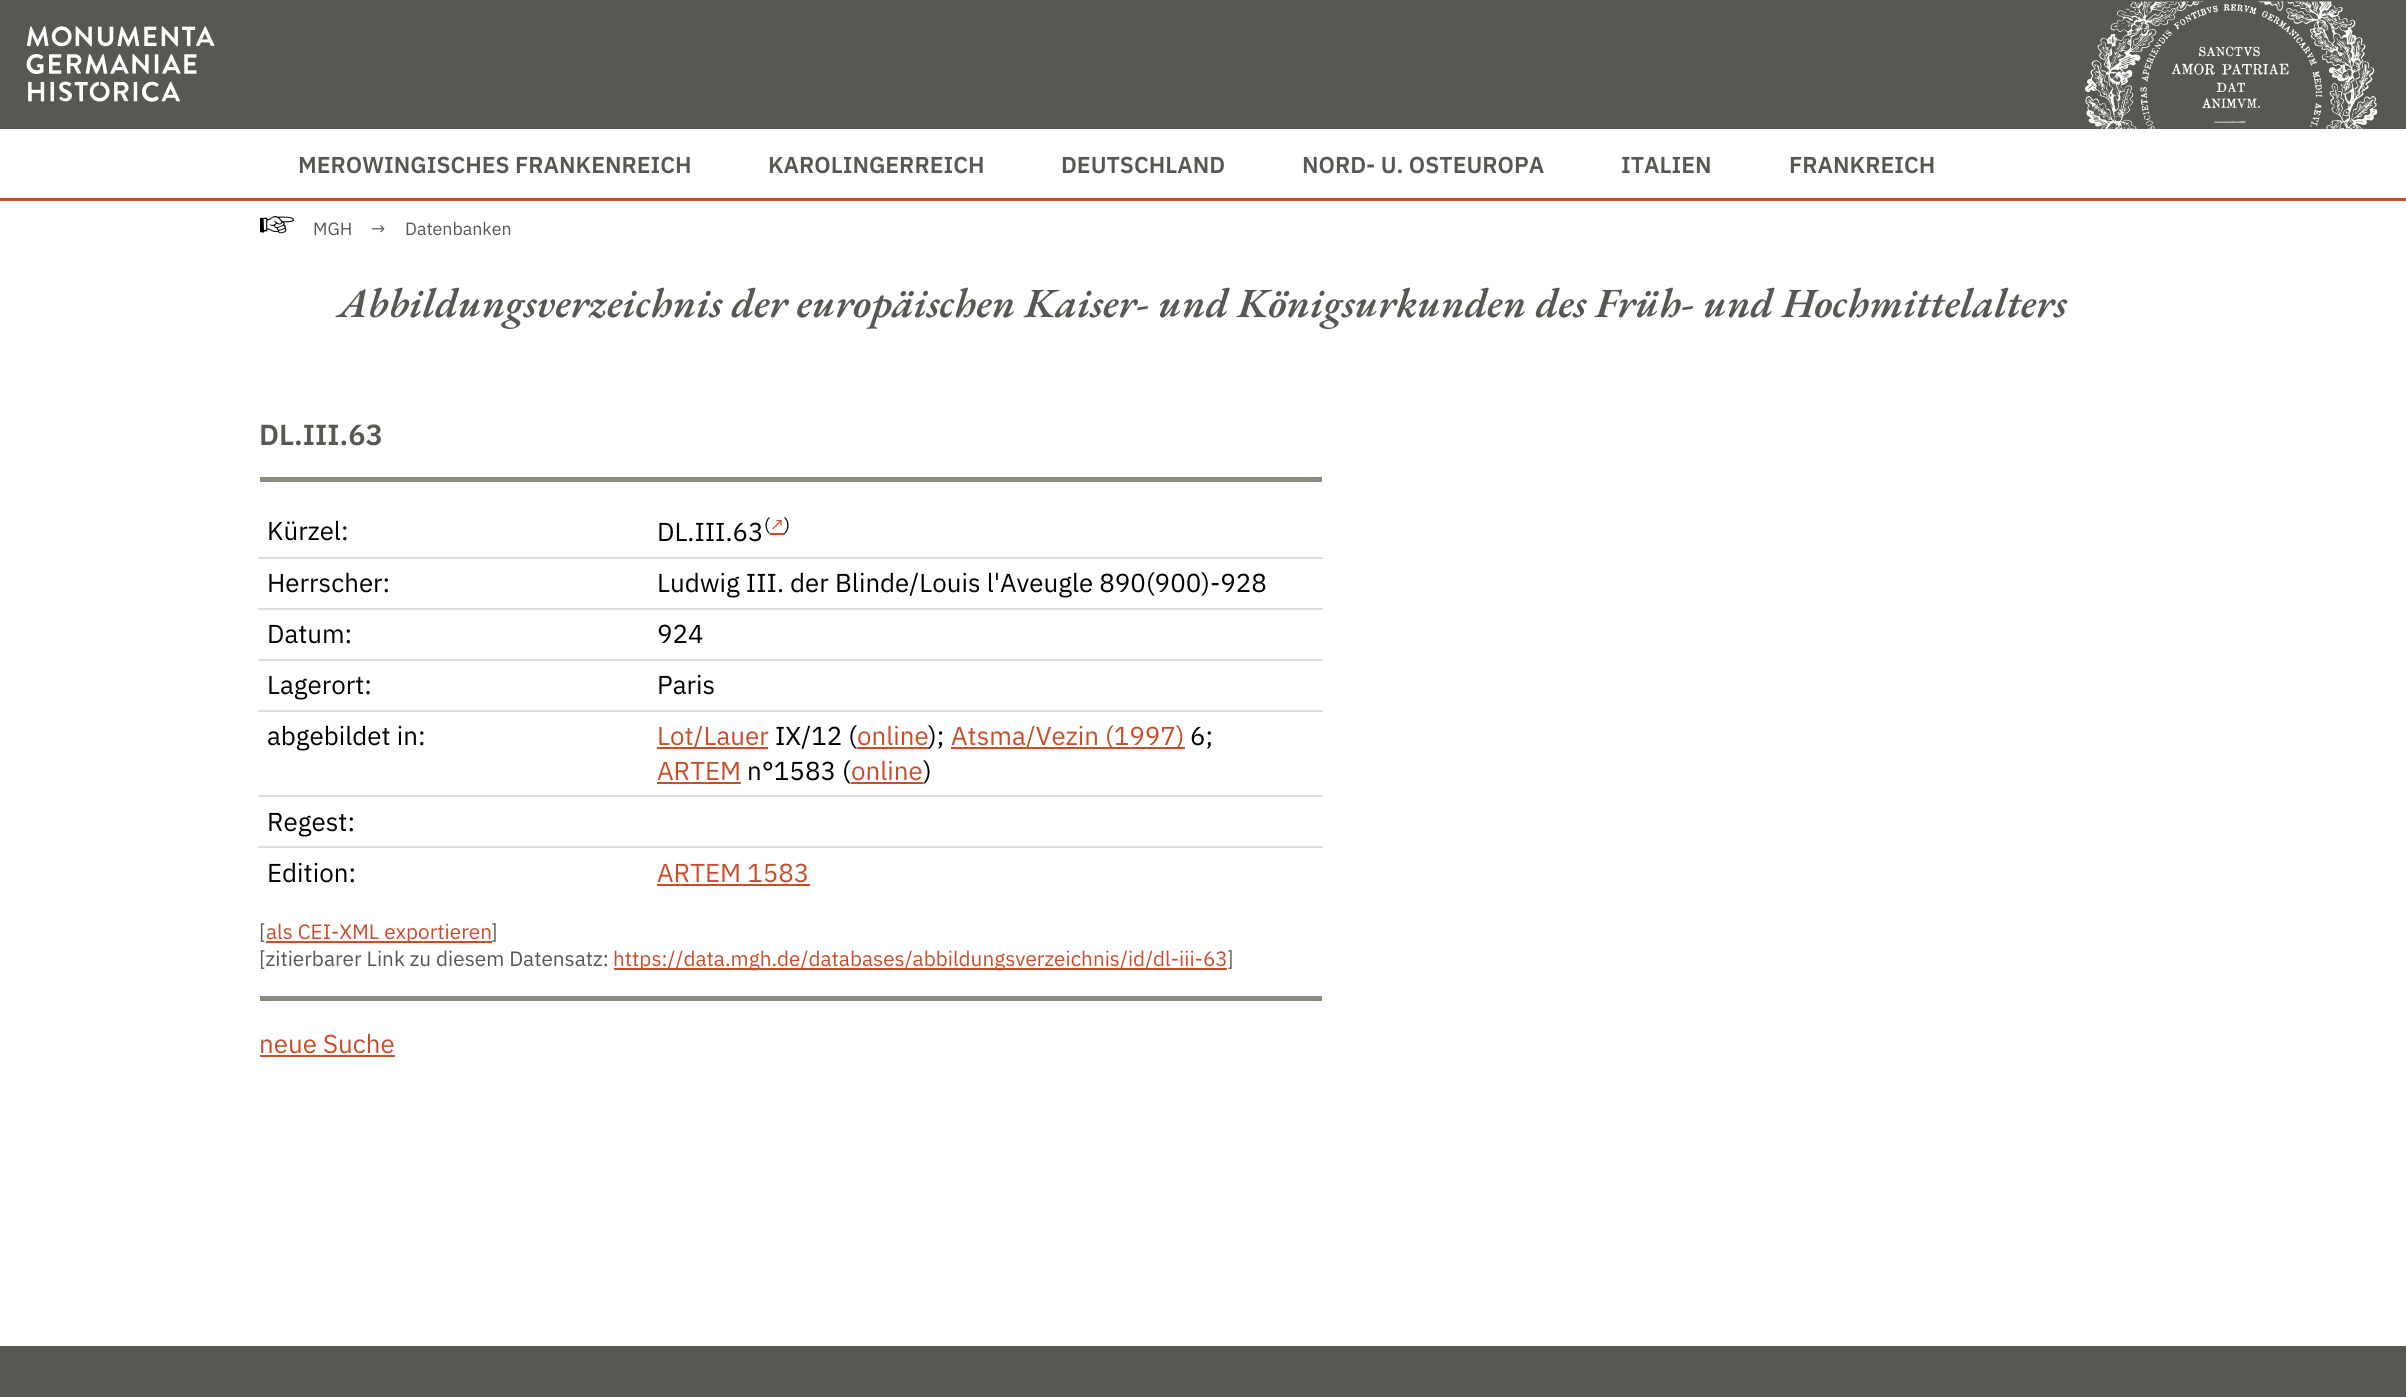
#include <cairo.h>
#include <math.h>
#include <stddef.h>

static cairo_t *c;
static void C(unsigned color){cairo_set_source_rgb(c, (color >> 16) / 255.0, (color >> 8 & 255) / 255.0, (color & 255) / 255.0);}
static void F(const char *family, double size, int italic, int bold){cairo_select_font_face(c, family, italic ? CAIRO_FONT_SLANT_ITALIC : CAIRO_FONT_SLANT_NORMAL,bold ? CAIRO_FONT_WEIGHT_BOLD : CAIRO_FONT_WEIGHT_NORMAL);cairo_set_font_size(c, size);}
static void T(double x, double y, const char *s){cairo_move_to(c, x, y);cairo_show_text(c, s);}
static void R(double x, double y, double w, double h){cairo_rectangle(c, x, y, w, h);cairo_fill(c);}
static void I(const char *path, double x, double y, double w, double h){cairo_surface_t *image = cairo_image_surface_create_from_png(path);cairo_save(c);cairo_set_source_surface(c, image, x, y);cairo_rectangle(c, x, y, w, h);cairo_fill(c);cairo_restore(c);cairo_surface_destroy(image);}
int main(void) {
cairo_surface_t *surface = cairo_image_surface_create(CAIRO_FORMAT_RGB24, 2406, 1397);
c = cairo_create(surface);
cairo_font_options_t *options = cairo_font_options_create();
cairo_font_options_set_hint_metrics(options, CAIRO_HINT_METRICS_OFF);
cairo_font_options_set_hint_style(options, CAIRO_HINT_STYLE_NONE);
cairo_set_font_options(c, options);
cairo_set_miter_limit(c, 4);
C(0xffffff);
cairo_paint(c);
C(0x555951);
R(0,0,2406,129);
I("1.png",26,26,189,76);
I("2.png",2085,1,293,128);
C(0xc94d2a);
R(0,198,2406,3);
F("IBM Plex Sans SemiBold",23,0,0);
C(0x555951);
T(298,173,"MEROWINGISCHES FRANKENREICH");
T(768,173,"KAROLINGERREICH");
T(1061,173,"DEUTSCHLAND");
T(1302,173,"NORD- U. OSTEUROPA");
T(1621,173,"ITALIEN");
T(1789,173,"FRANKREICH");
I("3.png",260,216,34,18);
F("IBM Plex Sans",17.75,0,0);
T(313,235,"MGH");
T(371,235,"→");
T(405,235,"Datenbanken");
F("EB Garamond SemiBold",41.5,1,0);
T(338,317,"Abbildungsverzeichnis der europäischen Kaiser- und Königsurkunden des Früh- und Hochmittelalters");
F("IBM Plex Sans SemiBold",29,0,0);
T(259,445,"DL.III.63");
C(0x888e82);
R(260,477,1062,5);
R(260,996,1062,5);
F("IBM Plex Sans",25.9,0,0);
C(0x000000);
T(267,540,"Kürzel:");
T(657,541,"DL.III.63");
C(0xc94d2a);
R(770,533,15,2);
F("IBM Plex Sans",18,0,0);
C(0x000000);
T(764,531,"(");
C(0xc94d2a);
T(770,531,"↗");
C(0x000000);
T(784,531,")");
F("IBM Plex Sans",25.9,0,0);
T(267,592,"Herrscher:");
C(0xdddddc);
R(258,557,1065,2);
C(0x000000);
T(657,592,"Ludwig III. der Blinde/Louis l'Aveugle 890(900)-928");
T(267,643,"Datum:");
C(0xdddddc);
R(258,608,1065,2);
C(0x000000);
T(657,643,"924");
T(267,694,"Lagerort:");
C(0xdddddc);
R(258,659,1065,2);
C(0x000000);
T(657,694,"Paris");
T(267,745,"abgebildet in:");
C(0xdddddc);
R(258,710,1065,2);
C(0xc94d2a);
R(657,747,111,2);
T(657,745,"Lot/Lauer");
C(0x000000);
T(775,745,"IX/12 (");
C(0xc94d2a);
R(857,747,72,2);
T(857,745,"online");
C(0x000000);
T(928,745,");");
C(0xc94d2a);
R(951,747,234,2);
T(951,745,"Atsma/Vezin (1997)");
C(0x000000);
T(1190,745,"6;");
C(0xc94d2a);
T(657,780,"ARTEM");
R(657,782,84,2);
C(0x000000);
T(747,780,"n°1583 (");
C(0xc94d2a);
R(851,782,72,2);
T(851,780,"online");
C(0x000000);
T(923,780,")");
C(0xdddddc);
R(258,795,1065,2);
C(0x000000);
T(267,831,"Regest:");
T(267,882,"Edition:");
C(0xdddddc);
R(258,846,1065,2);
C(0xc94d2a);
T(657,882,"ARTEM 1583");
R(657,884,153,2);
F("IBM Plex Sans",20.75,0,0);
C(0x555951);
T(259,939,"[");
C(0xc94d2a);
R(266,941,226,2);
T(266,939,"als CEI-XML exportieren");
C(0x555951);
T(491,939,"]");
T(259,966,"[zitierbarer Link zu diesem Datensatz:");
C(0xc94d2a);
R(614,968,613,2);
T(613,966,"https://data.mgh.de/databases/abbildungsverzeichnis/id/dl-iii-63");
C(0x555951);
T(1227,966,"]");
F("IBM Plex Sans",25.9,0,0);
C(0xc94d2a);
T(259,1053,"neue Suche");
R(260,1055,135,2);
C(0x555951);
R(0,1346,2406,51);
cairo_surface_write_to_png(surface, "o.png");
cairo_font_options_destroy(options);
cairo_destroy(c);
cairo_surface_destroy(surface);
return 0;
}
